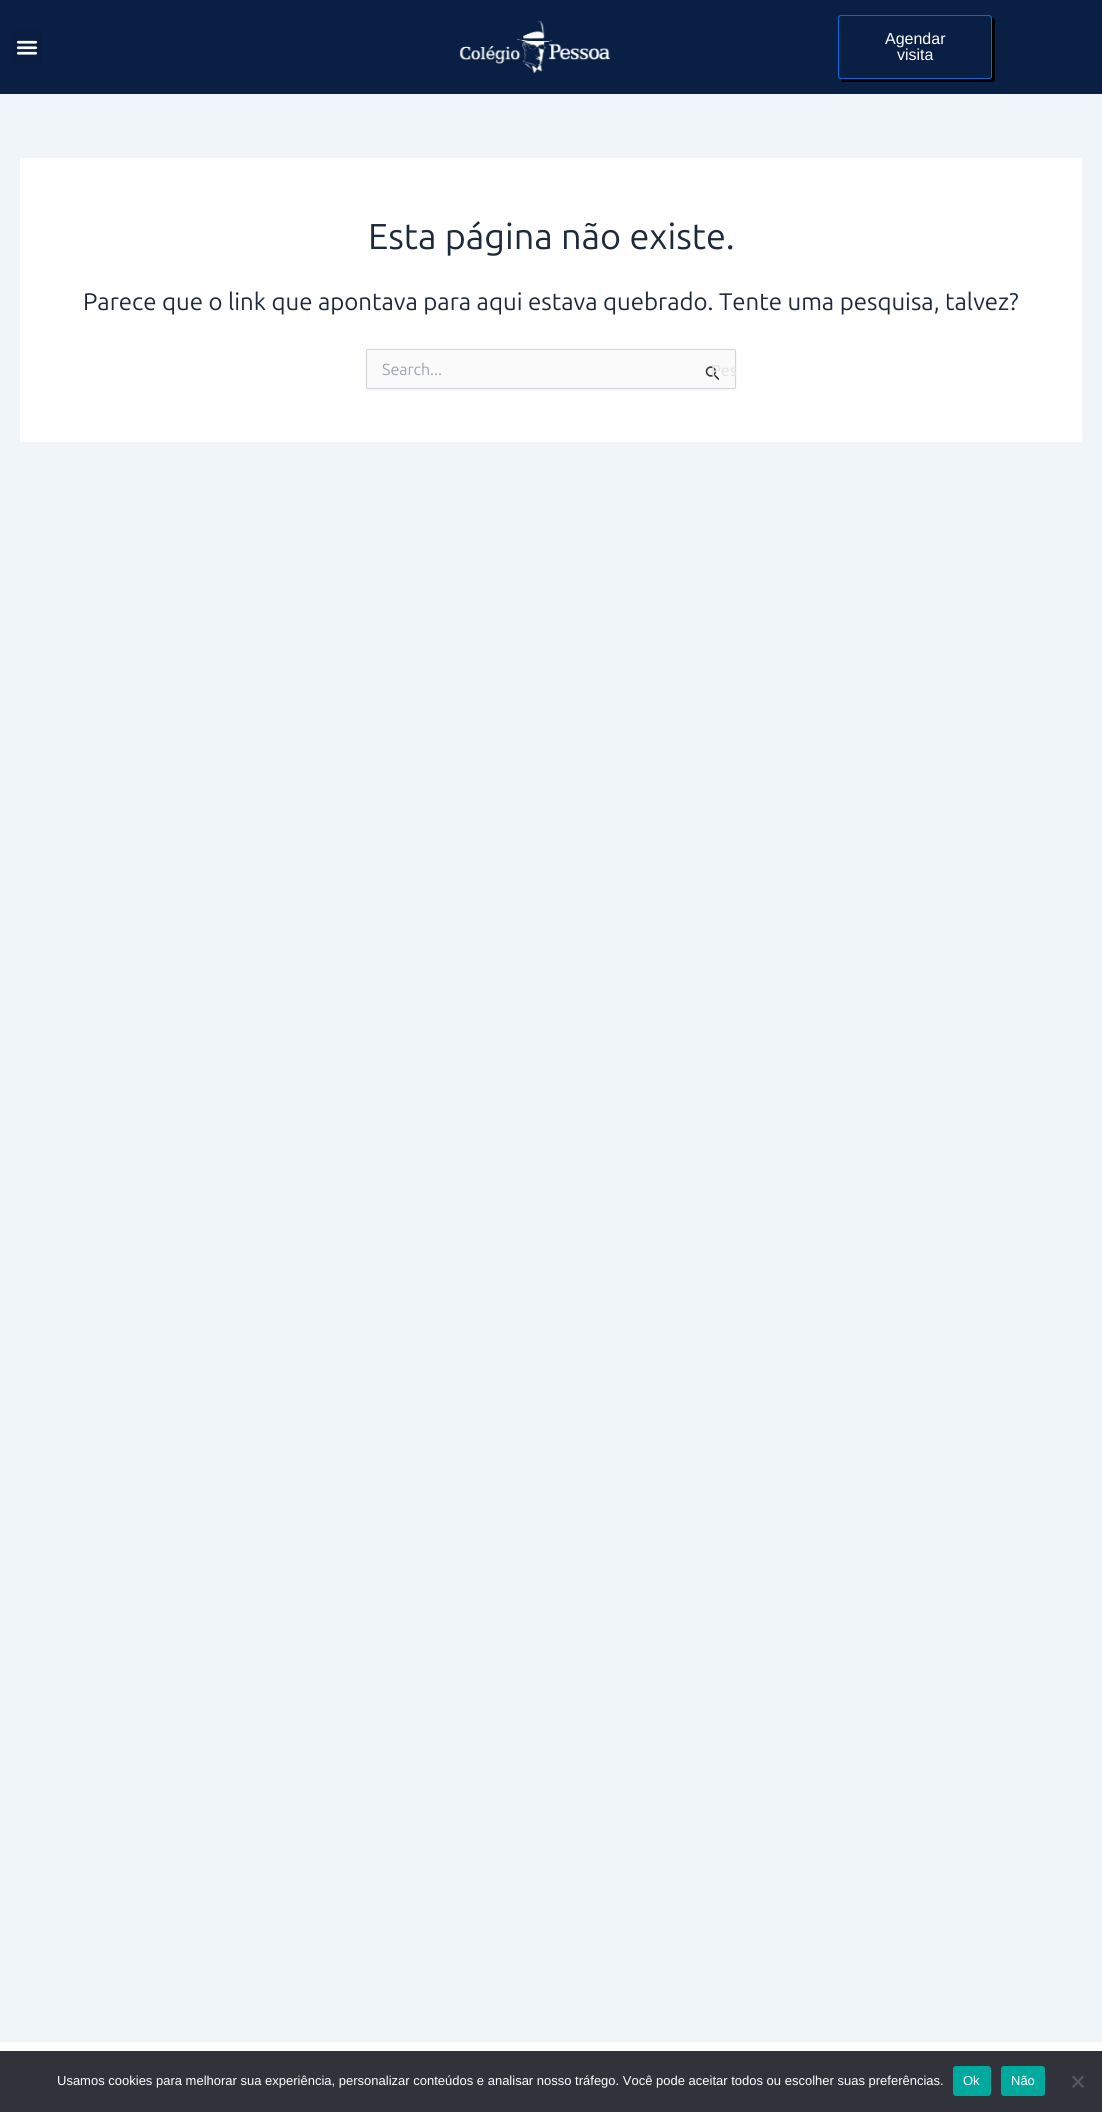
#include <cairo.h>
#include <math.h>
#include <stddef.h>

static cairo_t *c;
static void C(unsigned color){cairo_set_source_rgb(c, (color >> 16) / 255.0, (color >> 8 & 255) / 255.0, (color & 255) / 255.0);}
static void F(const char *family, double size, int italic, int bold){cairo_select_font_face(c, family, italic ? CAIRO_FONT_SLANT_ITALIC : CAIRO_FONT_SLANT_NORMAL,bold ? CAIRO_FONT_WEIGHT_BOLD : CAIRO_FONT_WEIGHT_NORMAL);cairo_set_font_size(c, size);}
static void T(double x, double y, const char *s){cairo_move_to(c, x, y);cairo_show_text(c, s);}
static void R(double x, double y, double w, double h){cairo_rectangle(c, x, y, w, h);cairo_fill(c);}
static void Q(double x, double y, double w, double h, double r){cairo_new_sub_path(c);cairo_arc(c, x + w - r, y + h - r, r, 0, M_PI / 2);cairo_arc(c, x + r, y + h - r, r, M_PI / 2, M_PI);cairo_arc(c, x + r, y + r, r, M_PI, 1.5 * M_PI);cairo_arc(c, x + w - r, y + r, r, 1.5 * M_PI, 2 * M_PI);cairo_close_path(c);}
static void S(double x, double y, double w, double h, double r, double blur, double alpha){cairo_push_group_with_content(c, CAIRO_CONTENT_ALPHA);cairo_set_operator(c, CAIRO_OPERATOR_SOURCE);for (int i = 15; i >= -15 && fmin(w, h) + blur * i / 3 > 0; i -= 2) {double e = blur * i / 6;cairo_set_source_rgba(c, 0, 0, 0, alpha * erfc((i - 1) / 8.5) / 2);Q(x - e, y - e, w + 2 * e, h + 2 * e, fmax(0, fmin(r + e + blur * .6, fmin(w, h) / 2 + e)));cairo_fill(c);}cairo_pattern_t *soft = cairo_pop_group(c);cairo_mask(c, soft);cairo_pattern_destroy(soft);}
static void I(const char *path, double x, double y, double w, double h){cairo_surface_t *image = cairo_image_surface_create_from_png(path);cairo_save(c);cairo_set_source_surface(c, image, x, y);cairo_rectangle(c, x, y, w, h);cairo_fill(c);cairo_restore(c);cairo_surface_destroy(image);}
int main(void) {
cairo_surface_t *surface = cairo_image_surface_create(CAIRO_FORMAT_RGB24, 1102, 2112);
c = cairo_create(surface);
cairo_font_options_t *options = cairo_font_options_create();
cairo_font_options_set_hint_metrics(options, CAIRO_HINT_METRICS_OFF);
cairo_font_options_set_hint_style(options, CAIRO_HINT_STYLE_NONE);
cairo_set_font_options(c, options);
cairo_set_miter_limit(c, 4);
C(0xf0f5fa);
cairo_paint(c);
C(0x0a1f44);
R(0,0,1102,94);
C(0x0a1d41);
Q(10,31,33,33,3);
cairo_fill(c);
I("1.png",16,40,22,15);
I("2.png",459,21,151,52);
C(0x000000);
cairo_new_path(c);
cairo_move_to(c,841,79);
cairo_curve_to(c,841,81,842,82,844,82);
cairo_line_to(c,992,82);
cairo_curve_to(c,994,82,995,81,995,79);
cairo_line_to(c,995,21);
cairo_curve_to(c,995,19,994,18,992,18);
cairo_line_to(c,992,76);
cairo_curve_to(c,992,78,991,79,989,79);
cairo_close_path(c);
cairo_fill(c);
C(0x0a1f44);
Q(838.5,15.5,153,63,2.5);
cairo_fill_preserve(c);
C(0x046bd2);
cairo_set_line_width(c,1);
cairo_stroke(c);
F("Liberation Sans",16,0,0);
C(0xffffff);
T(885,44,"Agendar");
T(897,60,"visita");
R(20,158,1062,284);
F("Ubuntu",36,0,0);
C(0x1e293b);
T(368,249,"Esta página não existe.");
F("Ubuntu",24,0,0);
T(83,310,"Parece que o link que apontava para aqui estava quebrado. Tente uma pesquisa, talvez?");
C(0x000000);
S(366,350,370,40,2,1,.05);
C(0xfafafa);
Q(366.5,349.5,369,39,1.5);
cairo_fill_preserve(c);
C(0xd1d5db);
cairo_stroke(c);
F("Ubuntu",16,0,0);
C(0x9ca3af);
T(382,375,"Search...");
I("3.png",705,366,14,15);
F("Ubuntu Medium",16,0,0);
C(0xe6e6e6);
T(711,376,"Pes");
C(0xffffff);
R(0,2042,1102,9);
C(0x32323a);
R(0,2051,1102,61);
F("Liberation Sans",13,0,0);
C(0xffffff);
T(57,2085,"Usamos cookies para melhorar sua experiência, personalizar conteúdos e analisar nosso tráfego. Você pode aceitar todos ou escolher suas preferências.");
C(0x00a99d);
Q(953,2066,38,30,3);
cairo_fill(c);
C(0xffffff);
T(963,2085,"Ok");
C(0x00a99d);
Q(1001,2066,44,30,3);
cairo_fill(c);
C(0xffffff);
T(1011,2085,"Não");
C(0x59595d);
cairo_new_path(c);
cairo_move_to(c,1082.5,2075.5);
cairo_line_to(c,1084,2077);
cairo_line_to(c,1073.5,2088);
cairo_line_to(c,1072,2086.5);
cairo_close_path(c);
cairo_fill(c);
cairo_new_path(c);
cairo_move_to(c,1072,2077);
cairo_line_to(c,1073.5,2075.5);
cairo_line_to(c,1084,2086.5);
cairo_line_to(c,1082.5,2088);
cairo_close_path(c);
cairo_fill(c);
cairo_surface_write_to_png(surface, "o.png");
cairo_font_options_destroy(options);
cairo_destroy(c);
cairo_surface_destroy(surface);
return 0;
}
